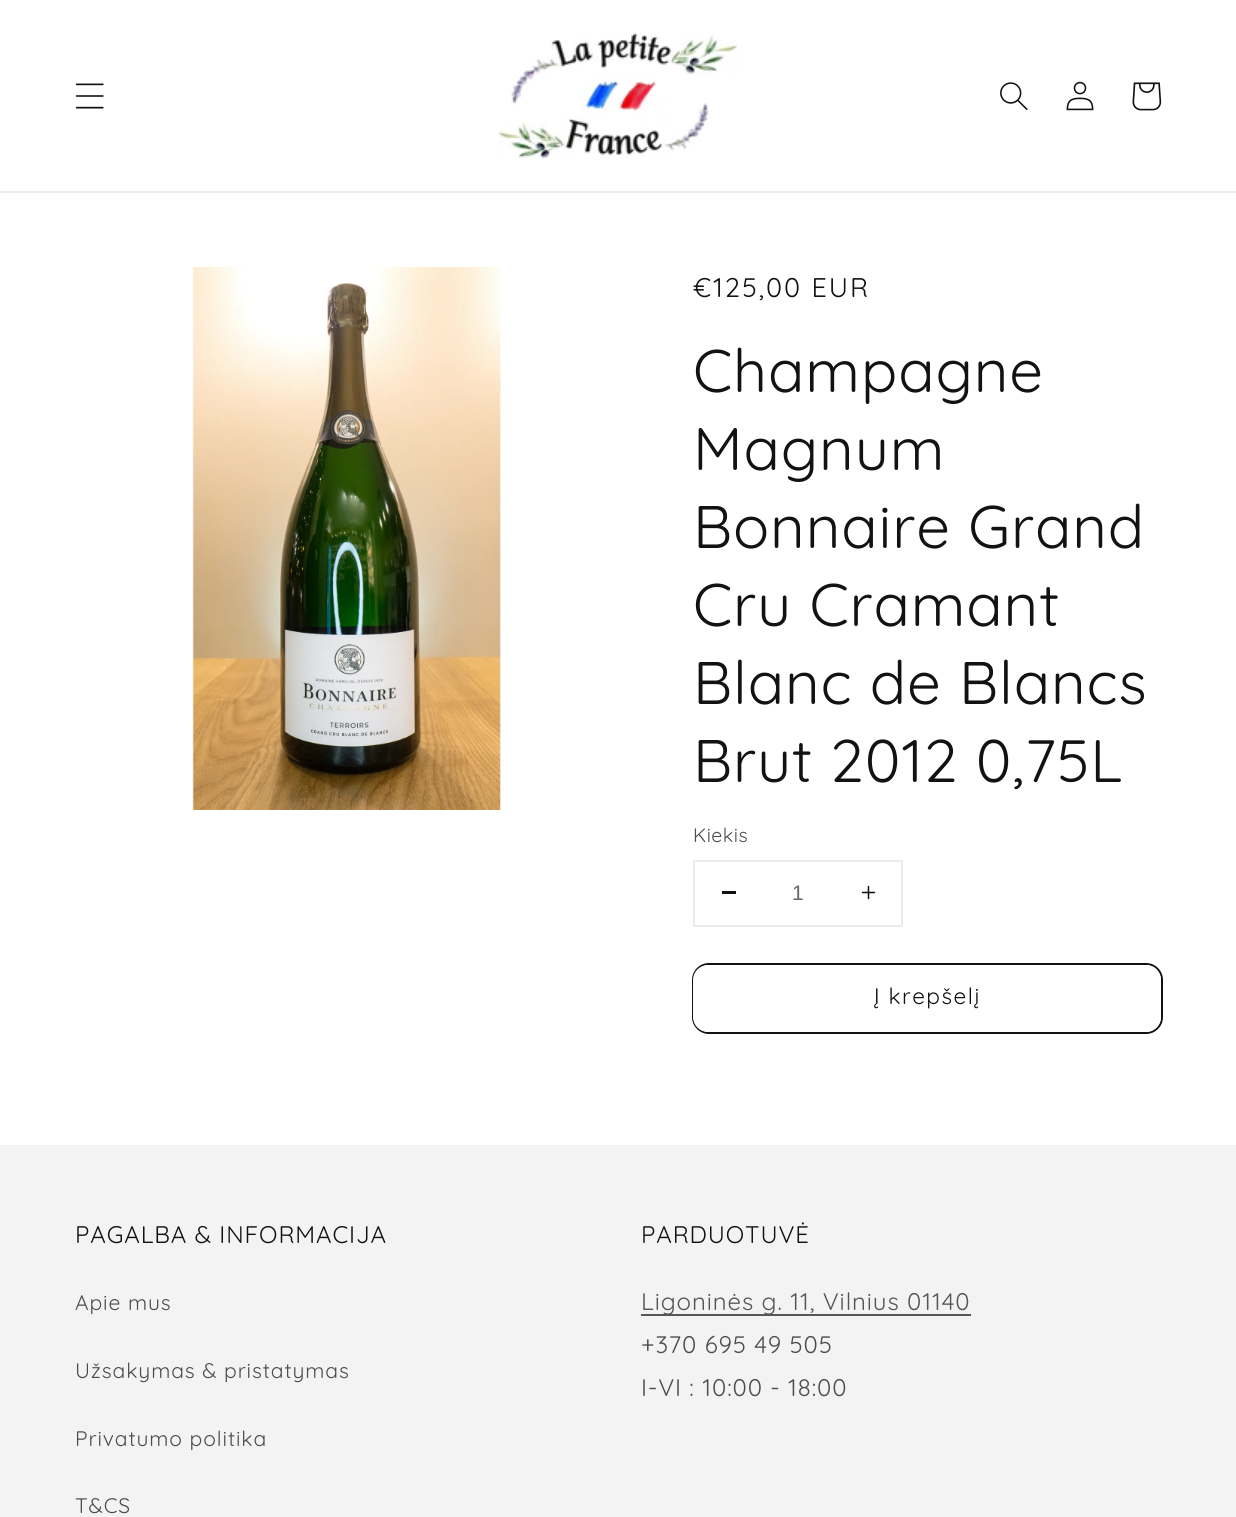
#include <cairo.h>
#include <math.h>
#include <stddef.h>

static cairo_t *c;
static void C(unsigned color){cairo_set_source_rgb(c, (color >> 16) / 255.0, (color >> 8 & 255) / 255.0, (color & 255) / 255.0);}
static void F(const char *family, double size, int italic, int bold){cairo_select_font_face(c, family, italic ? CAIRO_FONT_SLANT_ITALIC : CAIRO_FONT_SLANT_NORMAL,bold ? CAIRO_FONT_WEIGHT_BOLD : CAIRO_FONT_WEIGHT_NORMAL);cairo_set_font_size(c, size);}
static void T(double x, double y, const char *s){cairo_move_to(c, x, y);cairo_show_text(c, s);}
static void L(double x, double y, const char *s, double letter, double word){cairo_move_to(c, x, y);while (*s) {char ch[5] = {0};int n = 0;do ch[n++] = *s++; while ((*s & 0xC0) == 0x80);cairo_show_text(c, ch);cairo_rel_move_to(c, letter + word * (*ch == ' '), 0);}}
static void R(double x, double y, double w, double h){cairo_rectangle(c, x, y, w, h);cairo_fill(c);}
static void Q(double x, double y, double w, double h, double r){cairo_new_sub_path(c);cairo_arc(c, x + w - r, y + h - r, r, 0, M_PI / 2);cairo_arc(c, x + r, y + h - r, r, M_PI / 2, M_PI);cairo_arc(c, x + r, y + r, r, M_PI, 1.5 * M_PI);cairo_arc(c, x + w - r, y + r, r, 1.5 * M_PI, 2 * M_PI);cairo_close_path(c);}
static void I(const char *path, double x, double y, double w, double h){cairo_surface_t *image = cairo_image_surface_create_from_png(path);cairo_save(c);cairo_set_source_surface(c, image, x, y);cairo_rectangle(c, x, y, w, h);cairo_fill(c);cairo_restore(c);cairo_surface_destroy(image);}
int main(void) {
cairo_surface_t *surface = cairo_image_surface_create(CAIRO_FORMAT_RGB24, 1236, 1517);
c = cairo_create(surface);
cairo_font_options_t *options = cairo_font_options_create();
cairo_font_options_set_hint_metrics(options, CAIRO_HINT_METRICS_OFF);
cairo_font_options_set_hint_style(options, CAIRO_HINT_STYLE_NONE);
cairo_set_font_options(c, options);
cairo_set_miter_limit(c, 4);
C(0xffffff);
cairo_paint(c);
C(0xececec);
R(0,191,1236,2);
I("1.png",75,83,29,26);
I("2.png",498,33,240,126);
I("3.png",1000,82,28,28);
I("4.png",1066,81,28,30);
I("5.png",1132,82,30,29);
I("6.png",192,267,310,543);
F("Quicksand",27,0,0);
C(0x121212);
L(693,297,"€125,00 EUR",2,0);
F("Quicksand",60,0,0);
L(693,392,"Champagne",.9,0);
L(693,470,"Magnum",.9,0);
L(693,548,"Bonnaire Grand",.9,0);
L(693,626,"Cru Cramant",.9,0);
L(693,704,"Blanc de Blancs",.9,0);
L(693,782,"Brut 2012 0,75L",.9,0);
F("Quicksand",19.5,0,0);
C(0x4d4d4d);
L(693,842,"Kiekis",.5,0);
cairo_rectangle(c,694,861,208,65);
C(0xececec);
cairo_stroke(c);
C(0x121212);
R(722,891,14,3);
F("Liberation Sans",21,0,0);
C(0x686868);
T(792,900,"1");
I("7.png",861,885,15,15);
Q(693,964,469,69,16);
C(0x121212);
cairo_stroke(c);
C(0xffffff);
Q(693,965,468,67,15);
cairo_fill(c);
F("Quicksand",22.5,0,0);
C(0x121212);
L(874,1004,"Į krepšelį",1.5,0);
C(0xf3f3f3);
R(0,1145,1236,372);
F("Quicksand",24,0,0);
C(0x121212);
L(75,1243,"PAGALBA & INFORMACIJA",.9,0);
F("Quicksand",21,0,0);
C(0x4d4d4d);
L(75,1310,"Apie mus",.9,0);
L(75,1378,"Užsakymas & pristatymas",.9,0);
L(75,1446,"Privatumo politika",.9,0);
L(75,1513,"T&CS",.9,0);
F("Quicksand",24,0,0);
C(0x121212);
L(641,1243,"PARDUOTUVĖ",.9,0);
C(0x565656);
R(641,1314,330,2);
C(0x555555);
L(641,1310,"Ligoninės g. 11, Vilnius 01140",.9,0);
C(0x4d4d4d);
L(641,1353,"+370 695 49 505",.9,0);
L(641,1396,"I-VI : 10:00 - 18:00",.9,0);
cairo_surface_write_to_png(surface, "o.png");
cairo_font_options_destroy(options);
cairo_destroy(c);
cairo_surface_destroy(surface);
return 0;
}
